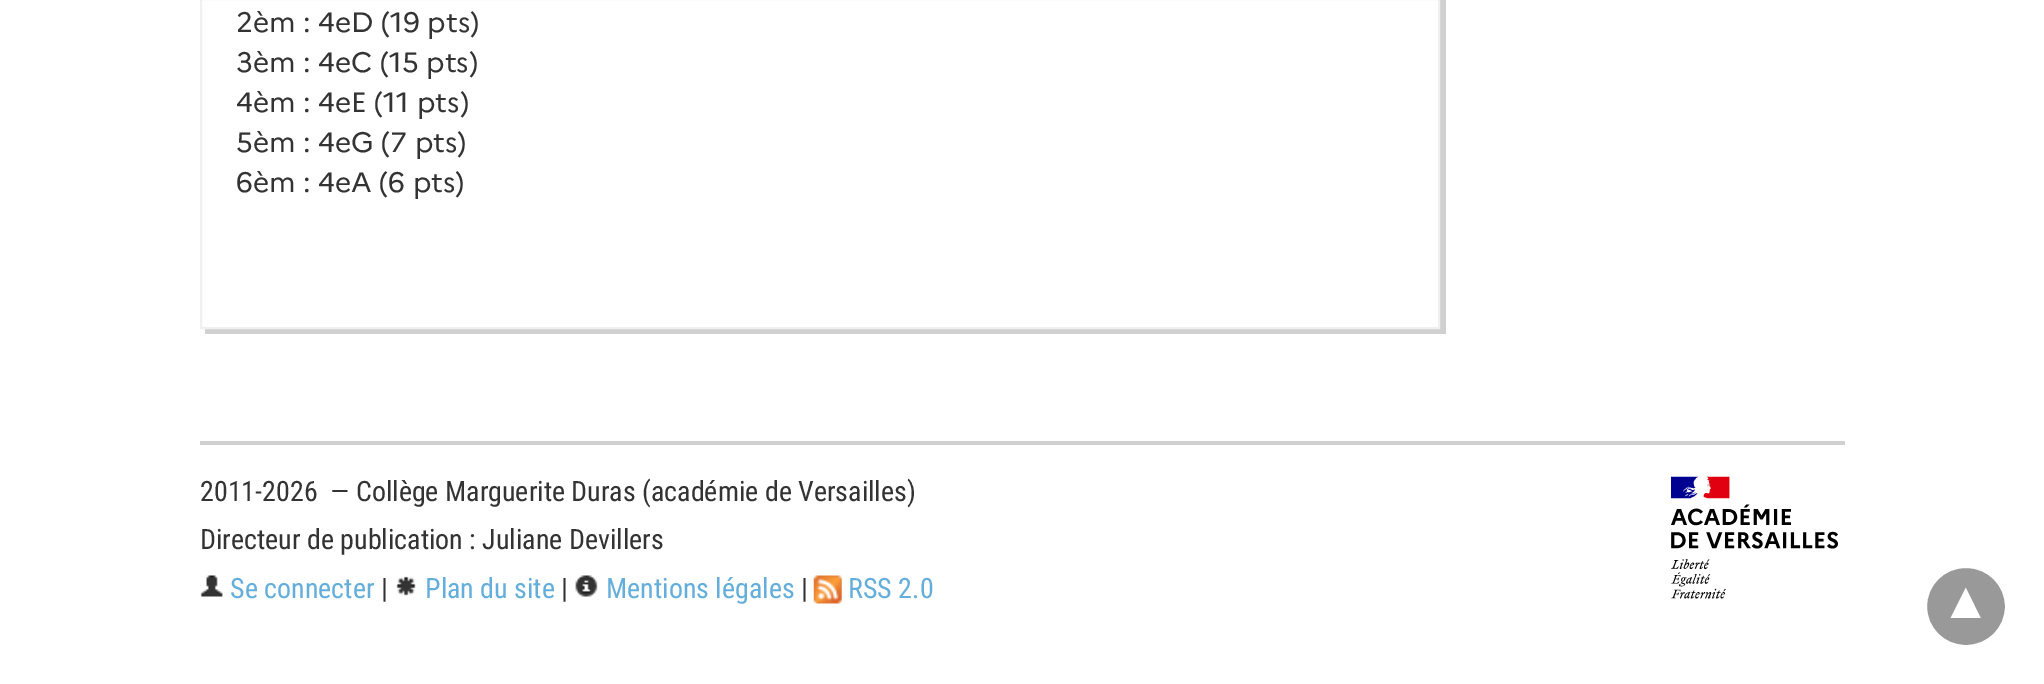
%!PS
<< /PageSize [2044 684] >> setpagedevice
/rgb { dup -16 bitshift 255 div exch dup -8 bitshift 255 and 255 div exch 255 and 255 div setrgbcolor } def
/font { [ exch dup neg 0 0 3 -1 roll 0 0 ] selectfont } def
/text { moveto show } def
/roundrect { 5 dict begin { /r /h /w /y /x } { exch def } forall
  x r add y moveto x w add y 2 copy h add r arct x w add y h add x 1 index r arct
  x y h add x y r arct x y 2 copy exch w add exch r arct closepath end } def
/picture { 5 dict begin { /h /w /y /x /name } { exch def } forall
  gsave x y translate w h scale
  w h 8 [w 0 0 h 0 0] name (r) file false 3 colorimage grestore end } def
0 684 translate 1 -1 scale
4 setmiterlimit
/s1 { /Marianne-Regular 28 font 16#333333 rgb } def
/s2 { /RobotoCondensed-Regular 28 font 16#333333 rgb } def
/s3 { /RobotoCondensed-Regular 28 font 16#64AEDB rgb } def
/s4 { /LiberationSans-Regular 52 font 16#FFFFFF rgb } def
16#FFFFFF rgb
0 0 2044 684 rectfill
16#D0D0D0 rgb
205 329 moveto 205 334 lineto 1446 334 lineto 1446 -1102 lineto 1440 -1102 lineto 1440 329 lineto closepath fill
16#F0F0F0 rgb
2 setlinewidth
201 -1 1238 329 rectstroke
s1
(2èm : 4eD \(19 pts\)) 236 32 text
(3èm : 4eC \(15 pts\)) 236 72 text
(4èm : 4eE \(11 pts\)) 236 112 text
(5èm : 4eG \(7 pts\)) 236 152 text
(6èm : 4eA \(6 pts\)) 236 192 text
16#D0D0D0 rgb
200 441 1645 4 rectfill
s2
(2011-2026  — Collège Marguerite Duras \(académie de Versailles\)) 200 501 text
(Directeur de publication : Juliane Devillers) 200 549 text
(pic1.raw) 200 575 23 22 picture
s3
(Se connecter) 230 598 text
s2
(|) 381 598 text
(pic2.raw) 396 576 20 20 picture
s3
(Plan du site) 425 598 text
s2
(|) 561 598 text
(pic3.raw) 575 575 23 22 picture
s3
(Mentions légales) 606 598 text
s2
(|) 801 598 text
(pic4.raw) 813 575 29 29 picture
s3
(RSS 2.0) 848 598 text
(pic5.raw) 1671 476 167 123 picture
16#999999 rgb
1925 566 82 81 40.5 roundrect gsave fill grestore
16#FFFFFF rgb
4 setlinewidth
stroke
s4
(▲) 1940 618 text
showpage
